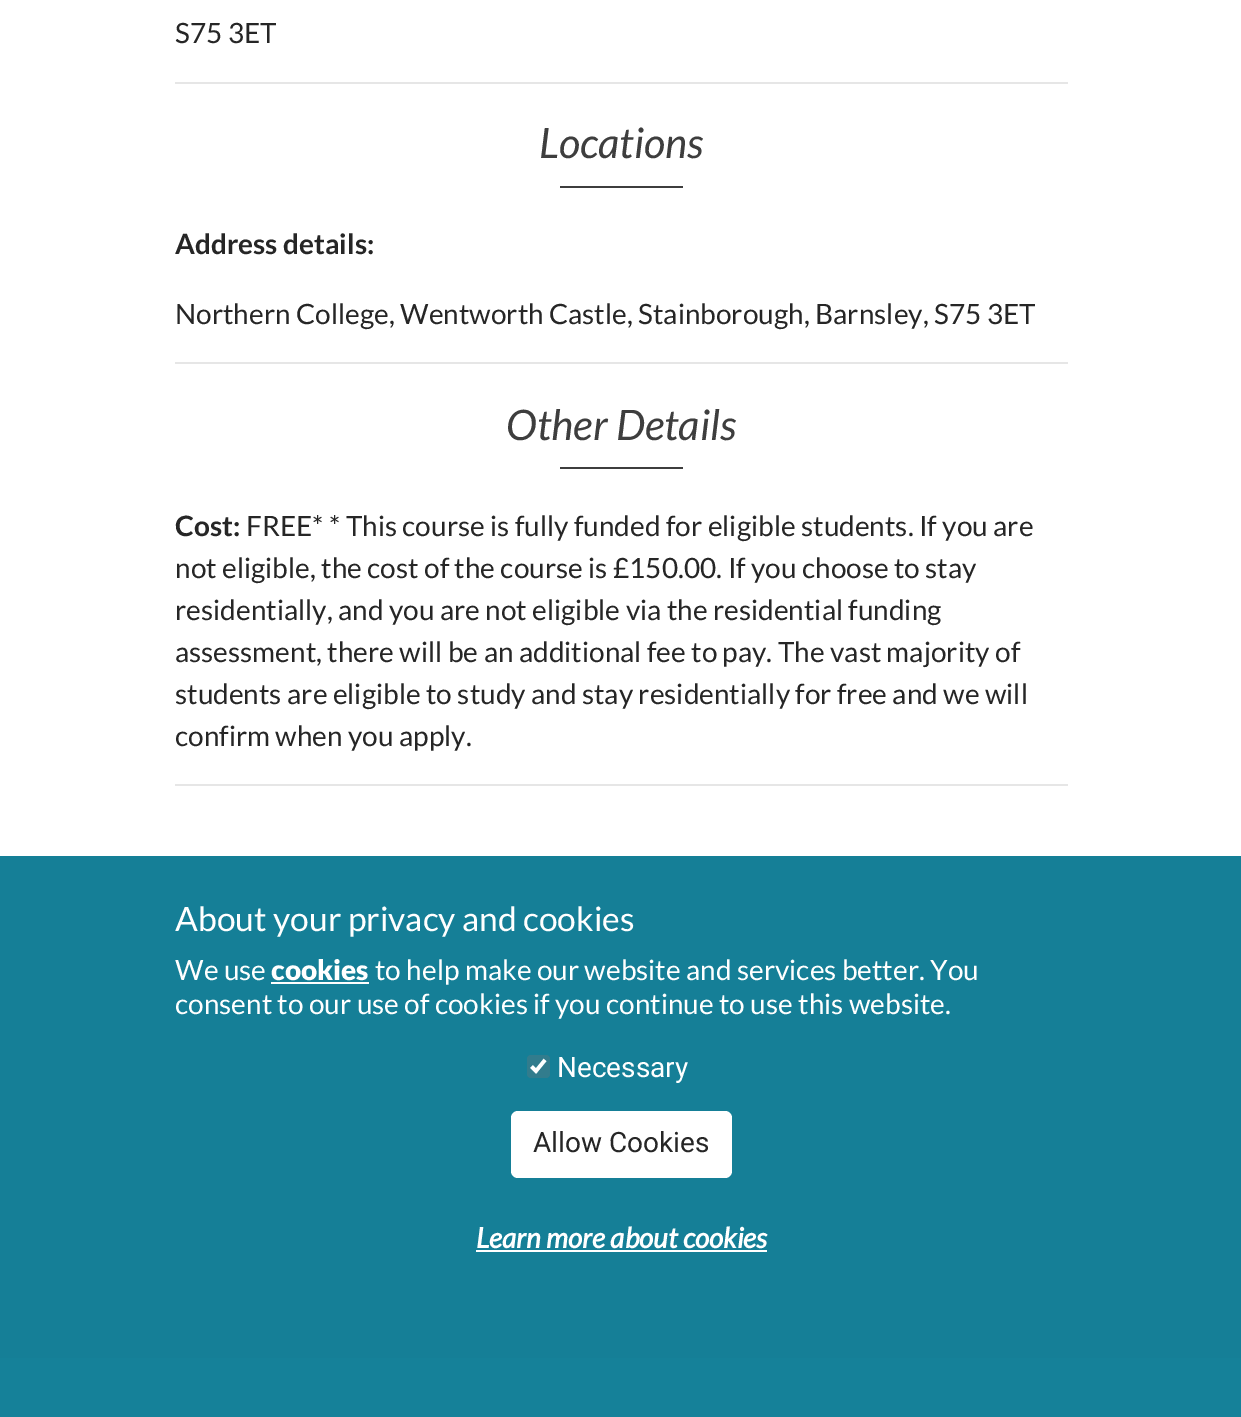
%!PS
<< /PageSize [1241 1417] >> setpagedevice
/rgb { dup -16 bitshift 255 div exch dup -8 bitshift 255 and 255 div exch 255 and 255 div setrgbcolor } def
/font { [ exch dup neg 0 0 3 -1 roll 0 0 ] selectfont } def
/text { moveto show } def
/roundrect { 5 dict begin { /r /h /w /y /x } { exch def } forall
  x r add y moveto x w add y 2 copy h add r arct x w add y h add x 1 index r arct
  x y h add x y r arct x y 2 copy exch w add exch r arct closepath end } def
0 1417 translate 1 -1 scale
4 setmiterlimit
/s1 { /Lato-Regular 28 font 16#262626 rgb } def
/s2 { /Lato-Italic 42 font 16#3E3E3E rgb } def
/s3 { /Lato-Bold 28 font 16#262626 rgb } def
/s4 { /Lato-Regular 33.6 font 16#FFFFFF rgb } def
/s5 { /Lato-Regular 28 font 16#FFFFFF rgb } def
/s6 { /Lato-Black 28 font 16#FFFFFF rgb } def
/s7 { /Roboto-Regular 28 font 16#FFFFFF rgb } def
/s8 { /Roboto-Regular 28 font 16#262626 rgb } def
/s9 { /Lato-BoldItalic 28 font 16#FFFFFF rgb } def
16#FFFFFF rgb
0 0 1241 1417 rectfill
s1
(S75 3ET) 175 43 text
16#E6E6E6 rgb
175 82 893 2 rectfill
s2
(Locations) 539 158 text
560 186 123 2 rectfill
s3
(Address details:) 175 254 text
s1
(Northern College, Wentworth Castle, Stainborough, Barnsley, S75 3ET) 175 324 text
16#E6E6E6 rgb
175 362 893 2 rectfill
s2
(Other Details) 506 440 text
560 467 123 2 rectfill
s3
(Cost:) 175 536 text
s1
(FREE* * This course is fully funded for eligible students. If you are) 246 536 text
(not eligible, the cost of the course is £150.00. If you choose to stay) 175 578 text
(residentially, and you are not eligible via the residential funding) 175 620 text
(assessment, there will be an additional fee to pay. The vast majority of) 175 662 text
(students are eligible to study and stay residentially for free and we will) 175 704 text
(confirm when you apply.) 175 746 text
16#E6E6E6 rgb
175 784 893 2 rectfill
16#157F97 rgb
0 856 1241 502 rectfill
s4
(About your privacy and cookies) 175 931 text
s5
(We use) 175 980 text
s6
(cookies) 271 980 text
271 982 98 2 rectfill
s5
(to help make our website and services better. You) 375 980 text
(consent to our use of cookies if you continue to use this website.) 175 1014 text
16#327C8D rgb
527 1055 23 23 4 roundrect fill
16#FFFFFF rgb
3.6 setlinewidth
531.5 1066.5 moveto 536 1071 lineto 545 1060 lineto stroke
s7
(Necessary) 557 1077 text
511 1111 221 67 7 roundrect fill
s8
(Allow Cookies) 533 1152 text
s9
(Learn more about cookies) 476 1248 text
476 1250 291 2 rectfill
16#158199 rgb
0 1358 1241 59 rectfill
showpage
